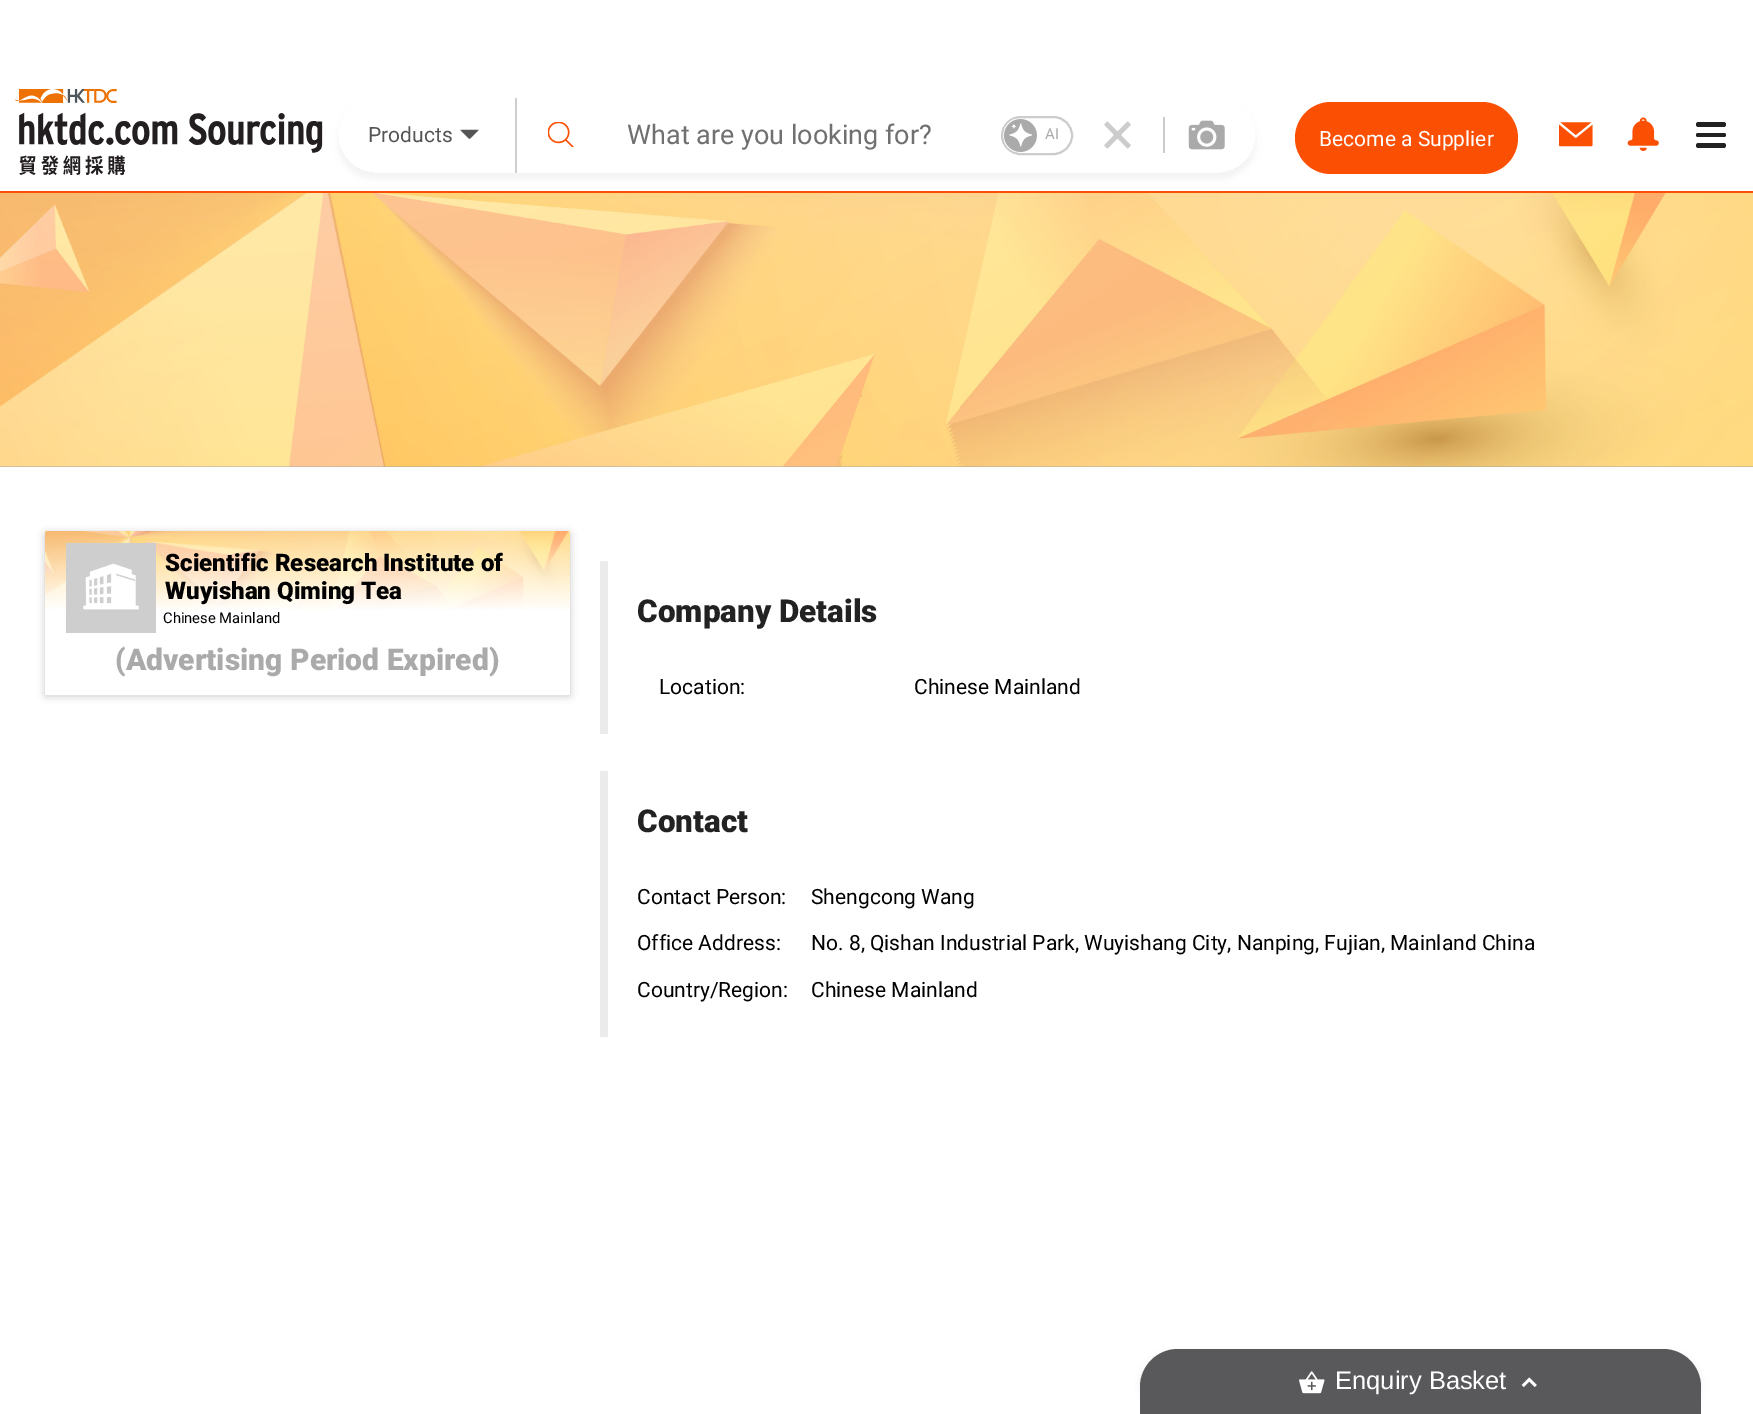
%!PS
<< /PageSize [1753 1414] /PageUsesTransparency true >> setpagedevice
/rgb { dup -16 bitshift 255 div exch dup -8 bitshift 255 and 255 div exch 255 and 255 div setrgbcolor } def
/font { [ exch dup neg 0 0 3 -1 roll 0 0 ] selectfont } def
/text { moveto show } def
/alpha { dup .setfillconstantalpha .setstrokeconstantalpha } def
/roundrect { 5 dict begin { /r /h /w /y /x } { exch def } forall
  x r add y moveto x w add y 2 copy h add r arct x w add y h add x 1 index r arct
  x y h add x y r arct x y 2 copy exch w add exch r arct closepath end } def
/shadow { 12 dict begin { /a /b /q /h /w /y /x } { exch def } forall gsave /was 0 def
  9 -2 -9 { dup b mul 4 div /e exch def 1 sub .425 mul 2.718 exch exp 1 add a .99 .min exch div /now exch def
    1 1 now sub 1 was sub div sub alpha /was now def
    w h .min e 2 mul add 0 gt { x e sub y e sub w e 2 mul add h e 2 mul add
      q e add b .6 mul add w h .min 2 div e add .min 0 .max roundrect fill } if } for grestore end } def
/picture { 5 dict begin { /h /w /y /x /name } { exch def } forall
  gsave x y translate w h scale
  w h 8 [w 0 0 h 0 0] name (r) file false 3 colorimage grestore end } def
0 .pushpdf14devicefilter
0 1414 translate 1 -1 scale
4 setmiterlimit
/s1 { /Roboto-Regular 21 font 16#555555 rgb } def
/s2 { /Roboto-Regular 27 font 16#707070 rgb } def
/s3 { /Roboto-Regular 15 font 16#AAAAAA rgb } def
/s4 { /Roboto-Regular 21 font 16#FFFFFF rgb } def
/s5 { /Roboto-Black 24.1 font 16#000000 rgb } def
/s6 { /Roboto-Regular 14.75 font 16#000000 rgb } def
/s7 { /Roboto-Black 30 font 16#AAAAAA rgb } def
/s8 { /Roboto-Black 31.5 font 16#222222 rgb } def
/s9 { /Roboto-Regular 21 font 16#000000 rgb } def
/s10 { /LiberationSans-Regular 25.5 font 16#FFFFFF rgb } def
16#FFFFFF rgb
0 0 1753 1414 rectfill
16#FB5004 rgb
0 191 1753 2 rectfill
(pic1.raw) 15 89 308 86 picture
gsave
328 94 moveto 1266 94 lineto 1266 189 lineto 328 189 lineto closepath 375.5 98 moveto 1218.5 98 lineto 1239 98 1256 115 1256 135.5 curveto 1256 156 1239 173 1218.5 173 curveto 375.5 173 lineto 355 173 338 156 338 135.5 curveto 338 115 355 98 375.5 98 curveto closepath eoclip newpath
16#7F7F7F rgb
338 104 918 75 37.5 3 0.1 shadow
grestore
16#CFCFCF rgb
515 98 2 75 rectfill
s1
(Products) 368 142 text
(pic2.raw) 460 129 19 10 picture
(pic3.raw) 548 122 26 25 picture
s2
(What are you looking for?) 627 144 text
16#CCCCCC rgb
2 setlinewidth
1002 117 70 37 18.5 roundrect stroke
(pic4.raw) 1004 119 33 33 picture
s3
(AI) 1045 139 text
(pic5.raw) 1104 121 27 28 picture
16#CCCCCC rgb
1163 117 2 36 rectfill
(pic6.raw) 1188 120 37 30 picture
16#FB5004 rgb
1295 102 223 72 36 roundrect fill
s4
(Become a Supplier) 1319 146 text
(pic7.raw) 1559 122 34 25 picture
(pic8.raw) 1627 117 32 34 picture
16#222222 rgb
1696 122 30 5 2.5 roundrect fill
1696 133 30 4 2 roundrect fill
1696 143 30 5 2.5 roundrect fill
16#A9A9A9 rgb
0 466 1753 1 rectfill
(pic9.raw) 0 193 1753 274 picture
16#070001 rgb
45 533 525 163 1.5 4 0.22 shadow
16#FFFFFF rgb
45 531 525 164 1.5 roundrect fill
(pic10.raw) 45 531 525 79 picture
(pic11.raw) 66 543 90 90 picture
s5
(Scientific Research Institute of) 165 571 text
(Wuyishan Qiming Tea) 165 599 text
s6
(Chinese Mainland) 163 623 text
s7
(\(Advertising Period Expired\)) 115 670 text
16#EBEBEB rgb
600 561 8 173 rectfill
s8
(Company Details) 637 622 text
s9
(Location:) 659 694 text
(Chinese Mainland) 914 694 text
16#EBEBEB rgb
600 771 8 266 rectfill
s8
(Contact) 637 832 text
s9
(Contact Person:) 637 904 text
(Shengcong Wang) 811 904 text
(Office Address:) 637 950 text
(No. 8, Qishan Industrial Park, Wuyishang City, Nanping, Fujian, Mainland China) 811 950 text
(Country/Region:) 637 997 text
(Chinese Mainland) 811 997 text
1140 1353 561 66 38 4 0.06 shadow
16#59595B rgb
1178 1349 moveto 1663 1349 lineto 1684 1349 1701 1366 1701 1387 curveto 1701 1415 lineto 1140 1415 lineto 1140 1387 lineto 1140 1366 1157 1349 1178 1349 curveto closepath fill
(pic12.raw) 1299 1371 26 23 picture
s10
(Enquiry Basket) 1335 1389 text
(pic13.raw) 1521 1377 16 10 picture
.poppdf14devicefilter showpage
